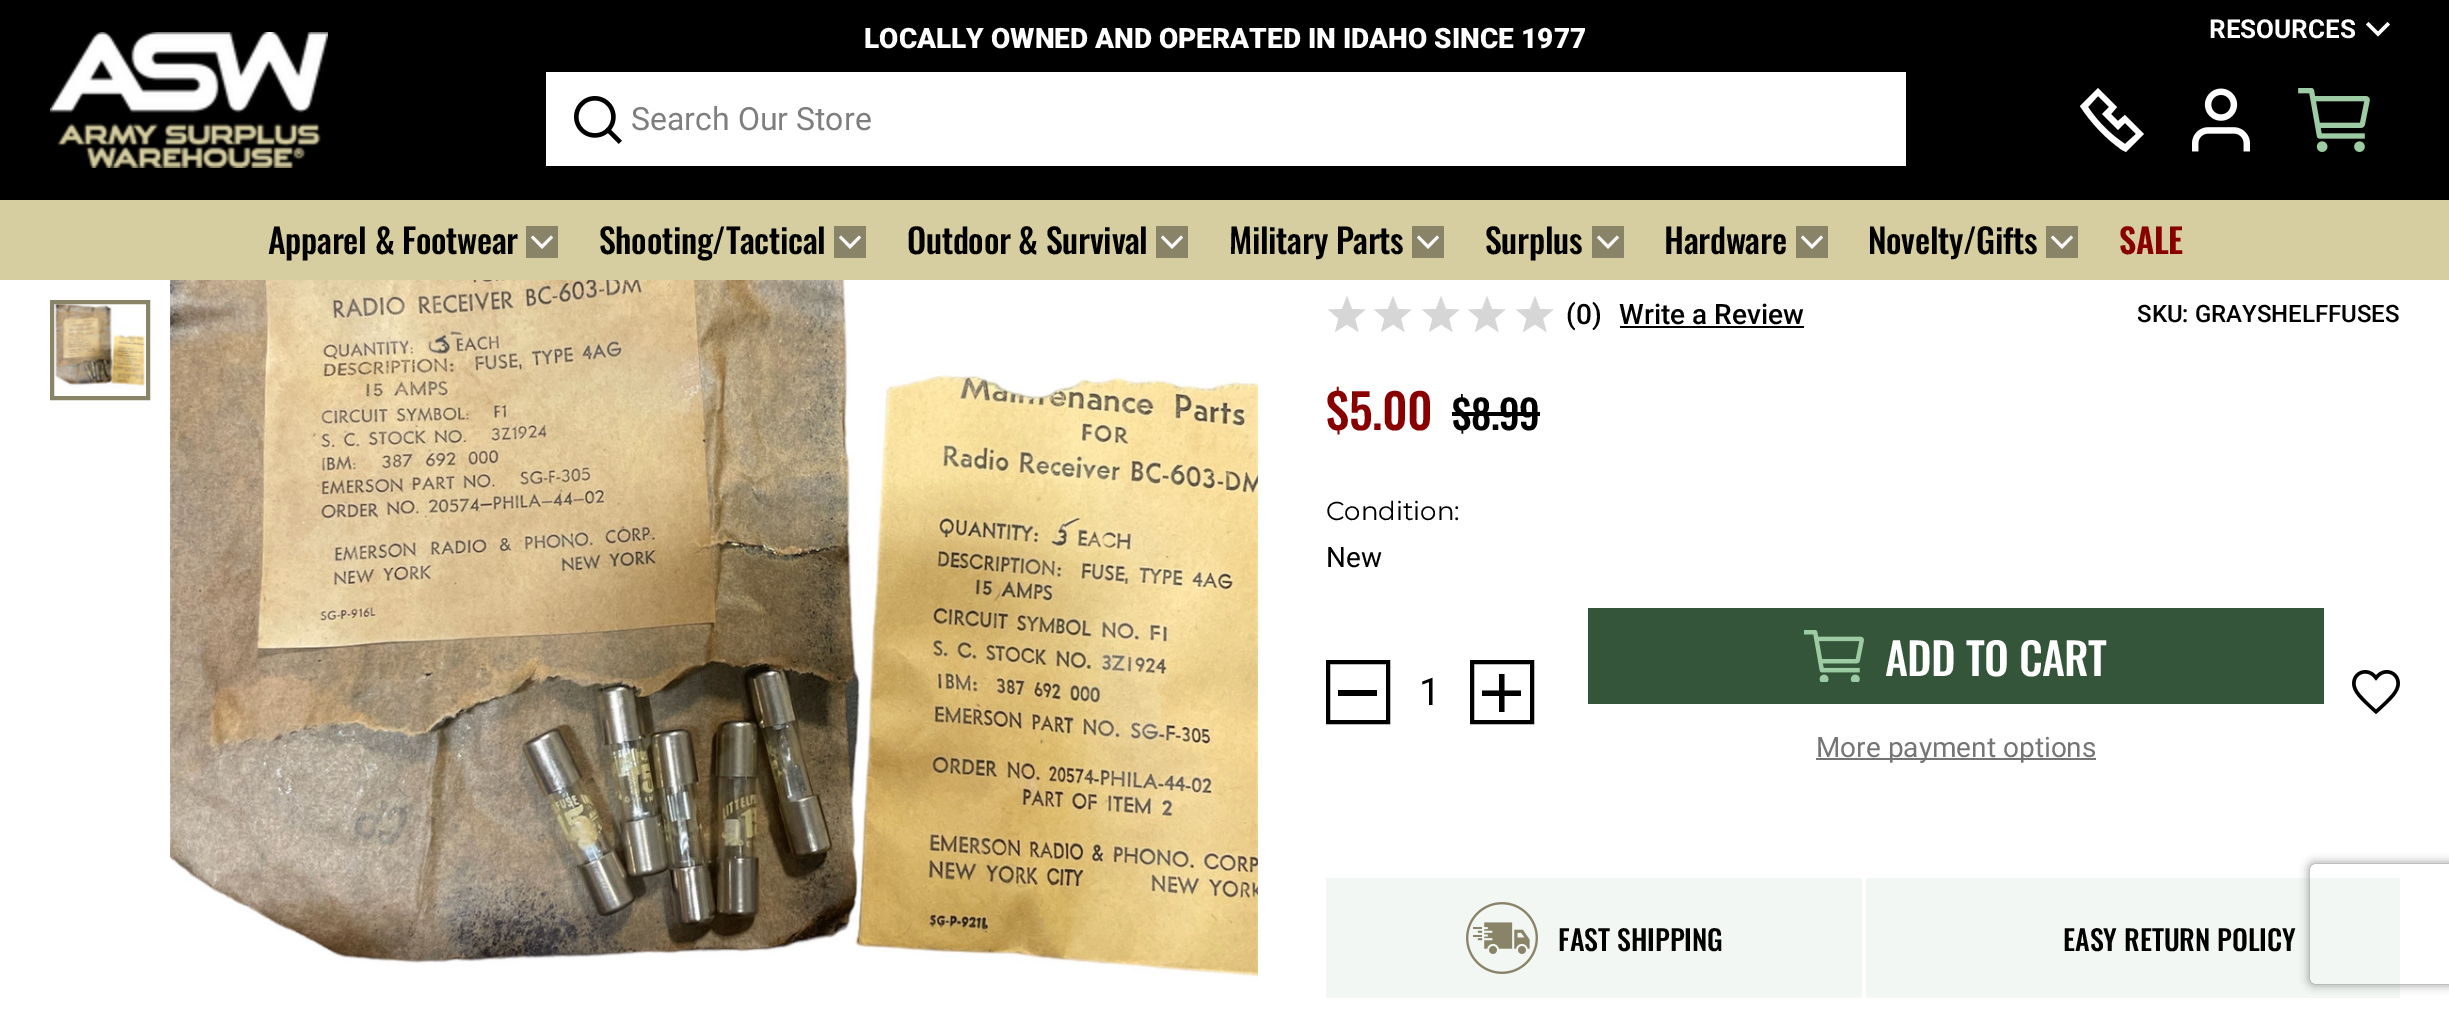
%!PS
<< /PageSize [2449 1011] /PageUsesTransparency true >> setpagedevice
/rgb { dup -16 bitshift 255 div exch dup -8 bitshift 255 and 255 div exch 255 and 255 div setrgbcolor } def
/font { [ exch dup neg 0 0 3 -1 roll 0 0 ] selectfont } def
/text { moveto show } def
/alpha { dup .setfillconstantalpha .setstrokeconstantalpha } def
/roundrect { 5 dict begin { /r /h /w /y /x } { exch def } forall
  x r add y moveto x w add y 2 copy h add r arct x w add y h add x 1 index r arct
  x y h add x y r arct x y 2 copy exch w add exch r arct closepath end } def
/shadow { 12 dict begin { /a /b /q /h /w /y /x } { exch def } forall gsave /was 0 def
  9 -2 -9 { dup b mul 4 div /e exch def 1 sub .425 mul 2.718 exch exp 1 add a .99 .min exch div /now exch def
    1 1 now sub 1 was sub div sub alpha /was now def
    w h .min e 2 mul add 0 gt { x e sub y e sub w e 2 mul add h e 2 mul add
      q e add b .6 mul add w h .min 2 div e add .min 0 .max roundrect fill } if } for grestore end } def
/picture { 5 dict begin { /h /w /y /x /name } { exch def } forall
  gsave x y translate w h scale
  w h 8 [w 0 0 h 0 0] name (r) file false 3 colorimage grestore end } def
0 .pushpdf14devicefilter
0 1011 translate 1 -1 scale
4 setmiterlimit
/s1 { /Roboto-Black 28 font 16#FFFFFF rgb } def
/s2 { /Roboto-Regular 32 font 16#7E7E7E rgb } def
/s3 { /Roboto-Bold 26 font 16#FFFFFF rgb } def
/s4 { /Roboto-Medium 28 font 16#000000 rgb } def
/s5 { /Roboto-Medium 24 font 16#000000 rgb } def
/s6 { /Montserrat-Regular 26 font 16#000000 rgb } def
/s7 { /Roboto-Regular 28 font 16#000000 rgb } def
/s8 { /Roboto-Regular 38 font 16#000000 rgb } def
/s9 { /Roboto-Regular 28 font 16#757575 rgb } def
/s10 { /Oswald-Medium 28 font 16#000000 rgb } def
16#FFFFFF rgb
0 0 2449 1011 rectfill
16#000000 rgb
0 0 2449 200 rectfill
(pic1.raw) 50 32 278 136 picture
s1
(LOCALLY OWNED AND OPERATED IN IDAHO SINCE 1977) 864 48 text
546 72 1360 94 rectfill
(pic2.raw) 574 96 48 48 picture
s2
(Search Our Store) 631 130 text
s3
(RESOURCES) 2209 38 text
2387.5 22 moveto 2378 31.5 lineto 2368.5 22 lineto 2366 24.5 lineto 2378 36.5 lineto 2390 24.5 lineto closepath fill
2122 150 moveto 2105 138 2091 123 2080 106 curveto 2098 88 lineto 2117 107 lineto 2111 114 lineto 2118 121 lineto 2125 115 lineto 2144 134 lineto 2126 152 lineto closepath 2088 107 moveto 2098 122 2110 134 2125 144 curveto 2136 134 lineto 2125 123 lineto 2118 130 lineto 2102 114 lineto 2109 107 lineto 2098 96 lineto closepath fill
(pic3.raw) 2192 88 58 64 picture
(pic4.raw) 2298 88 72 64 picture
16#D6CEA1 rgb
0 200 2449 80 rectfill
/Oswald-Medium 34 font
16#000000 rgb
268 254 moveto -0.3 0 (Apparel & Footwear) ashow
16#898467 rgb
526 226 32 32 rectfill
16#F8F8F8 rgb
551 235.5 moveto 542 244.5 lineto 533 235.5 lineto 531 237.5 lineto 542 249 lineto 553 237.5 lineto closepath fill
16#000000 rgb
599 254 moveto -0.3 0 (Shooting/Tactical) ashow
16#898467 rgb
834 226 32 32 rectfill
16#F8F8F8 rgb
859 235.5 moveto 850 244.5 lineto 841 235.5 lineto 839 237.5 lineto 850 249 lineto 861 237.5 lineto closepath fill
16#000000 rgb
907 254 moveto -0.3 0 (Outdoor & Survival) ashow
16#898467 rgb
1156 226 32 32 rectfill
16#F8F8F8 rgb
1181 235.5 moveto 1172 244.5 lineto 1163 235.5 lineto 1161 237.5 lineto 1172 249 lineto 1183 237.5 lineto closepath fill
16#000000 rgb
1229 254 moveto -0.3 0 (Military Parts) ashow
16#898467 rgb
1412 226 32 32 rectfill
16#F8F8F8 rgb
1437 235.5 moveto 1428 244.5 lineto 1419 235.5 lineto 1417 237.5 lineto 1428 249 lineto 1439 237.5 lineto closepath fill
16#000000 rgb
1485 254 moveto -0.3 0 (Surplus) ashow
16#898467 rgb
1592 226 32 32 rectfill
16#F8F8F8 rgb
1617 235.5 moveto 1608 244.5 lineto 1599 235.5 lineto 1597 237.5 lineto 1608 249 lineto 1619 237.5 lineto closepath fill
16#000000 rgb
1664 254 moveto -0.3 0 (Hardware) ashow
16#898467 rgb
1796 226 32 32 rectfill
16#F8F8F8 rgb
1821 235.5 moveto 1812 244.5 lineto 1803 235.5 lineto 1801 237.5 lineto 1812 249 lineto 1823 237.5 lineto closepath fill
16#000000 rgb
1868 254 moveto -0.3 0 (Novelty/Gifts) ashow
16#898467 rgb
2046 226 32 32 rectfill
16#F8F8F8 rgb
2071 235.5 moveto 2062 244.5 lineto 2053 235.5 lineto 2051 237.5 lineto 2062 249 lineto 2073 237.5 lineto closepath fill
/Oswald-SemiBold 34 font
16#880000 rgb
2119 254 moveto -0.3 0 (SALE) ashow
(pic5.raw) 55 304 90 86 picture
16#898467 rgb
4 setlinewidth
52 302 96 96 rectstroke
(pic6.raw) 170 280 1088 700 picture
16#D6D6D6 rgb
1347 296 moveto 1352 309 lineto 1365.5 309.5 lineto 1355 318.5 lineto 1358.5 332 lineto 1347 324.5 lineto 1335 332 lineto 1338.5 318.5 lineto 1328 309.5 lineto 1342 309 lineto closepath fill
1393 296 moveto 1398 309 lineto 1411.5 309.5 lineto 1401 318.5 lineto 1404.5 332 lineto 1393 324.5 lineto 1381 332 lineto 1384.5 318.5 lineto 1374 309.5 lineto 1388 309 lineto closepath fill
1441 296 moveto 1446 309 lineto 1459.5 309.5 lineto 1449 318.5 lineto 1452.5 332 lineto 1441 324.5 lineto 1429 332 lineto 1432.5 318.5 lineto 1422 309.5 lineto 1436 309 lineto closepath fill
1487 296 moveto 1492 309 lineto 1505.5 309.5 lineto 1495 318.5 lineto 1498.5 332 lineto 1487 324.5 lineto 1475 332 lineto 1478.5 318.5 lineto 1468 309.5 lineto 1482 309 lineto closepath fill
1535 296 moveto 1540 309 lineto 1553.5 309.5 lineto 1543 318.5 lineto 1546.5 332 lineto 1535 324.5 lineto 1523 332 lineto 1526.5 318.5 lineto 1516 309.5 lineto 1530 309 lineto closepath fill
s4
(\(0\)) 1566 324 text
(Write a Review) 1619 324 text
1620 326 184 2 rectfill
s5
(SKU: GRAYSHELFFUSES) 2137 322 text
/Oswald-Medium 48 font
16#880000 rgb
1326 430 moveto -0.5 0 ($5.00) ashow
/Oswald-Medium 40 font
16#000000 rgb
1452 430 moveto -0.5 0 ($8.99) ashow
1452 412 88 4 rectfill
s6
(Condition:) 1326 520 text
s7
(New) 1326 567 text
1328 662 60 60 rectstroke
1338 690 39 6 rectfill
s8
(1) 1419 705 text
1472 662 60 60 rectstroke
gsave
1482 674 40 38 rectclip
1499 712.5 moveto 1499 696 lineto 1482 696 lineto 1482 690.5 lineto 1499 690.5 lineto 1499 674 lineto 1504.5 674 lineto 1504.5 690.5 lineto 1521 690.5 lineto 1521 696 lineto 1504.5 696 lineto 1504.5 712.5 lineto closepath fill
grestore
16#345539 rgb
1588 608 736 96 rectfill
(pic7.raw) 1804 630 60 52 picture
/Oswald-Medium 44 font
16#FFFFFF rgb
1885 676 moveto -0.5 0 (ADD TO CART) ashow
16#757575 rgb
1816 758 280 2 rectfill
s9
(More payment options) 1816 757 text
(pic8.raw) 2352 670 48 44 picture
16#F2F7F3 rgb
1326 878 1074 120 rectfill
(pic9.raw) 1466 902 72 72 picture
s10
(FAST SHIPPING) 1558 951 text
16#FFFFFF rgb
1862 878 4 120 rectfill
s10
(EASY RETURN POLICY) 2063 951 text
gsave
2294 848 moveto 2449 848 lineto 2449 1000 lineto 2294 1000 lineto closepath 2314 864 moveto 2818 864 lineto 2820 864 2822 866 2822 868 curveto 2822 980 lineto 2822 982 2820 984 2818 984 curveto 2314 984 lineto 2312 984 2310 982 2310 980 curveto 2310 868 lineto 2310 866 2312 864 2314 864 curveto closepath eoclip newpath
16#808080 rgb
2310 864 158 120 4 5 1 shadow
grestore
.poppdf14devicefilter showpage
